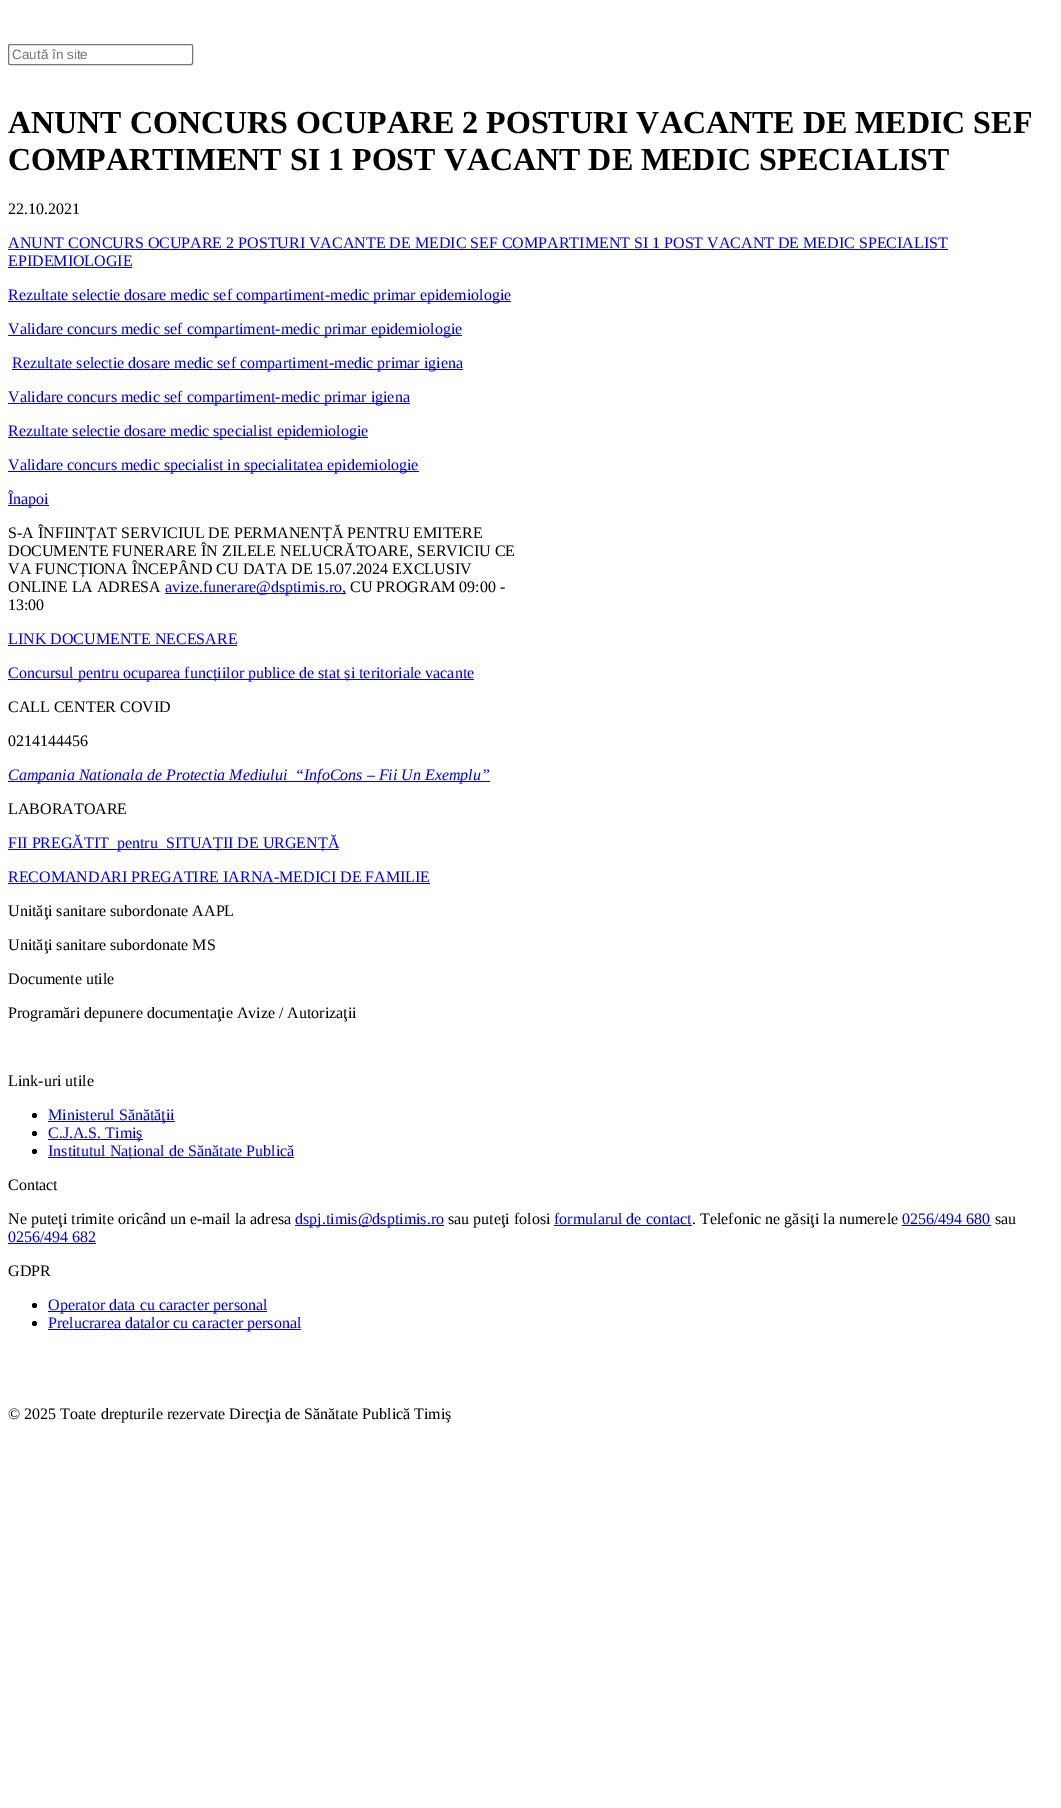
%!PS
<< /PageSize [1061 1808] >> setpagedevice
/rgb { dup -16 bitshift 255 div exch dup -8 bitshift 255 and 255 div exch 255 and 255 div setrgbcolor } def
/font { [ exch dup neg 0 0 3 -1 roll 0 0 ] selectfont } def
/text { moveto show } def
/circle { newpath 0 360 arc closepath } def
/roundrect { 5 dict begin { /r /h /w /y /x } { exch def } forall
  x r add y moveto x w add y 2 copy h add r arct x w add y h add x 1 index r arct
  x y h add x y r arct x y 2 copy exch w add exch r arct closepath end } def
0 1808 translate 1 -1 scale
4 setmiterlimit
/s1 { /LiberationSans-Regular 13.5 font 16#757575 rgb } def
/s2 { /LiberationSerif-Bold 32 font 16#000000 rgb } def
/s3 { /LiberationSerif-Regular 16 font 16#000000 rgb } def
/s4 { /LiberationSerif-Regular 16 font 16#0000EE rgb } def
/s5 { /LiberationSerif-Italic 16 font 16#0000EE rgb } def
16#FFFFFF rgb
0 0 1061 1808 rectfill
16#767676 rgb
8.5 44.5 184 20 1.5 roundrect stroke
s1
(Caută în site) 12 59 text
s2
(ANUNT CONCURS OCUPARE 2 POSTURI VACANTE DE MEDIC SEF) 8 133 text
(COMPARTIMENT SI 1 POST VACANT DE MEDIC SPECIALIST) 8 170 text
s3
(22.10.2021) 8 214 text
s4
(ANUNT CONCURS OCUPARE 2 POSTURI VACANTE DE MEDIC SEF COMPARTIMENT SI 1 POST VACANT DE MEDIC SPECIALIST) 8 248 text
8 249 940 1 rectfill
(EPIDEMIOLOGIE) 8 266 text
8 267 124 1 rectfill
8 301 503 1 rectfill
(Rezultate selectie dosare medic sef compartiment-medic primar epidemiologie) 8 300 text
8 335 454 1 rectfill
(Validare concurs medic sef compartiment-medic primar epidemiologie) 8 334 text
12 369 451 1 rectfill
(Rezultate selectie dosare medic sef compartiment-medic primar igiena) 12 368 text
8 403 402 1 rectfill
(Validare concurs medic sef compartiment-medic primar igiena) 8 402 text
8 437 360 1 rectfill
(Rezultate selectie dosare medic specialist epidemiologie) 8 436 text
8 471 411 1 rectfill
(Validare concurs medic specialist in specialitatea epidemiologie) 8 470 text
8 505 41 1 rectfill
(Înapoi) 8 504 text
s3
(S-A ÎNFIINȚAT SERVICIUL DE PERMANENȚĂ PENTRU EMITERE) 8 538 text
(DOCUMENTE FUNERARE ÎN ZILELE NELUCRĂTOARE, SERVICIU CE) 8 556 text
(VA FUNCȚIONA ÎNCEPÂND CU DATA DE 15.07.2024 EXCLUSIV) 8 574 text
(ONLINE LA ADRESA) 8 592 text
16#0000EE rgb
165 593 181 1 rectfill
(avize.funerare@dsptimis.ro,) 165 592 text
s3
(CU PROGRAM 09:00 -) 350 592 text
(13:00) 8 610 text
s4
(LINK DOCUMENTE NECESARE) 8 644 text
8 645 229 1 rectfill
8 679 466 1 rectfill
(Concursul pentru ocuparea funcțiilor publice de stat și teritoriale vacante) 8 678 text
s3
(CALL CENTER COVID) 8 712 text
(0214144456) 8 746 text
16#0000EE rgb
8 781 482 1 rectfill
s5
(Campania Nationala de Protectia Mediului  “InfoCons – Fii Un Exemplu”) 8 780 text
s3
(LABORATOARE) 8 814 text
16#0000EE rgb
8 849 331 1 rectfill
(FII PREGĂTIT  pentru  SITUAȚII DE URGENȚĂ) 8 848 text
(RECOMANDARI PREGATIRE IARNA-MEDICI DE FAMILIE) 8 882 text
8 883 422 1 rectfill
s3
(Unităţi sanitare subordonate AAPL) 8 916 text
(Unităţi sanitare subordonate MS) 8 950 text
(Documente utile) 8 984 text
(Programări depunere documentaţie Avize / Autorizaţii) 8 1018 text
(Link-uri utile) 8 1086 text
34.5 1115.5 2.5 circle fill
16#0000EE rgb
48 1121 127 1 rectfill
(Ministerul Sănătăţii) 48 1120 text
16#000000 rgb
34.5 1133.5 2.5 circle fill
16#0000EE rgb
48 1139 95 1 rectfill
(C.J.A.S. Timiş) 48 1138 text
16#000000 rgb
34.5 1151.5 2.5 circle fill
16#0000EE rgb
48 1157 246 1 rectfill
(Institutul Național de Sănătate Publică) 48 1156 text
s3
(Contact) 8 1190 text
(Ne puteţi trimite oricând un e-mail la adresa) 8 1224 text
16#0000EE rgb
295 1225 149 1 rectfill
(dspj.timis@dsptimis.ro) 295 1224 text
s3
(sau puteţi folosi) 448 1224 text
s4
(formularul de contact) 554 1224 text
554 1225 138 1 rectfill
s3
(. Telefonic ne găsiţi la numerele) 692 1224 text
s4
(0256/494 680) 902 1224 text
902 1225 89 1 rectfill
s3
(sau) 995 1224 text
s4
(0256/494 682) 8 1242 text
8 1243 88 1 rectfill
s3
(GDPR) 8 1276 text
34.5 1305.5 2.5 circle fill
16#0000EE rgb
48 1311 219 1 rectfill
(Operator data cu caracter personal) 48 1310 text
16#000000 rgb
34.5 1323.5 2.5 circle fill
16#0000EE rgb
48 1329 253 1 rectfill
(Prelucrarea datalor cu caracter personal) 48 1328 text
s3
(© 2025 Toate drepturile rezervate Direcţia de Sănătate Publică Timiş) 8 1419 text
showpage
